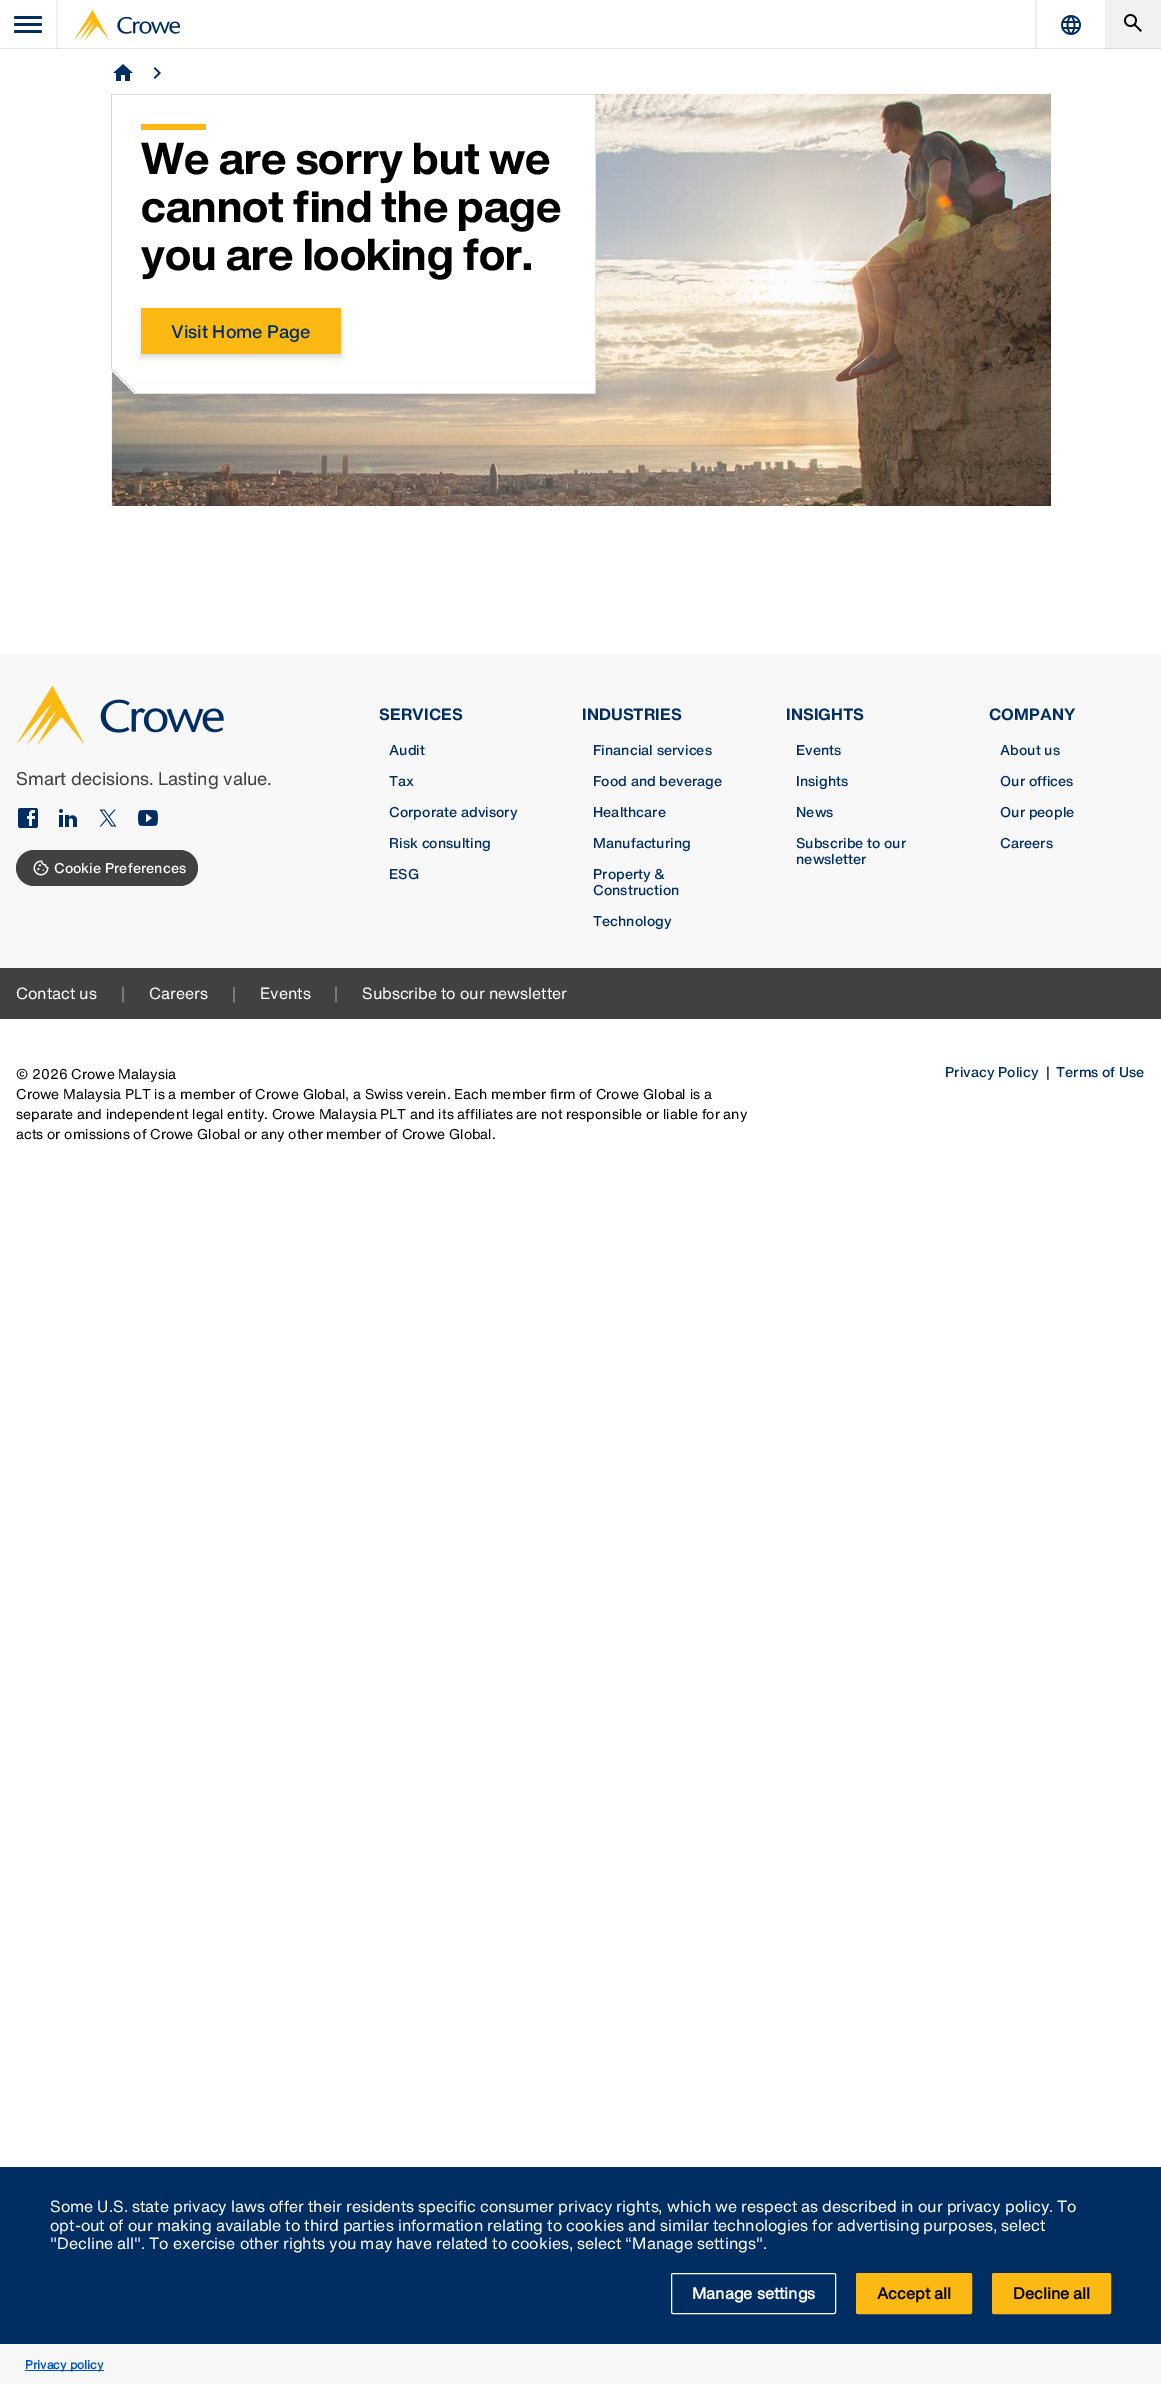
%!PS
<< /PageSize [1161 2384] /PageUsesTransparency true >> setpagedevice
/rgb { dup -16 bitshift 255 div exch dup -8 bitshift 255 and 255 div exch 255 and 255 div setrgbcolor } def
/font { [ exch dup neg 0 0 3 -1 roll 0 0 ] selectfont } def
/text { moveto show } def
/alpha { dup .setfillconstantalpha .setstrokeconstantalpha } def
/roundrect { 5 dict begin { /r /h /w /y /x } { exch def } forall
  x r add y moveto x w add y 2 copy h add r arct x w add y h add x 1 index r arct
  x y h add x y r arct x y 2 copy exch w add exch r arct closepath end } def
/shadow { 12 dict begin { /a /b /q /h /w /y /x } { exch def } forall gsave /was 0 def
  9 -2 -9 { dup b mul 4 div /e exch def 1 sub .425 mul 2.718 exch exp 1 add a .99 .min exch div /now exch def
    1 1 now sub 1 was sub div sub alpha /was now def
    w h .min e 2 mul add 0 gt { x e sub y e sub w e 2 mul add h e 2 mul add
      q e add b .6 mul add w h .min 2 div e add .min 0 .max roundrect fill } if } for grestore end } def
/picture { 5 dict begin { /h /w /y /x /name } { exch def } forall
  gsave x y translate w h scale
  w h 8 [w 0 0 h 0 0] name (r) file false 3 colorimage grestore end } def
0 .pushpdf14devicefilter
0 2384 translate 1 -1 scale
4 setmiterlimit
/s1 { /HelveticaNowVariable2-Bold 44 font 16#000000 rgb } def
/s2 { /HelveticaNowVariable2-Medium 18 font 16#002D62 rgb } def
/s3 { /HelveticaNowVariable-Regular 18 font 16#414141 rgb } def
/s4 { /HelveticaNowVariable-Medium 14 font 16#FFFFFF rgb } def
/s5 { /HelveticaNowVariable-Bold 16 font 16#002D62 rgb } def
/s6 { /HelveticaNowVariable-Medium 14 font 16#002D62 rgb } def
/s7 { /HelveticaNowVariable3-Regular 16 font 16#FFFFFF rgb } def
/s8 { /HelveticaNowVariable3-Regular 16 font 16#8E8E8E rgb } def
/s9 { /HelveticaNowVariable2-Regular 14 font 16#000000 rgb } def
/s10 { /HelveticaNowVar-Regular 16 font 16#FFFFFF rgb } def
/s11 { /HelveticaNowVar-Bold 16 font 16#FFFFFF rgb } def
/s12 { /HelveticaNowVar-Bold 16 font 16#000000 rgb } def
/s13 { /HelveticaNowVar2-Bold 12 font 16#0052CC rgb } def
16#FFFFFF rgb
0 0 1161 2384 rectfill
16#E6E6E6 rgb
0 48 1105 1 rectfill
16#F1F1F1 rgb
56 0 2 49 rectfill
16#D9D9D9 rgb
56 48 2 1 rectfill
16#002D62 rgb
14 16 28 3 1.5 roundrect fill
14 23 28 3 1.5 roundrect fill
14 30 28 3 1.5 roundrect fill
16#F1F1F1 rgb
1035 0 2 49 rectfill
16#D9D9D9 rgb
1035 48 2 1 rectfill
(pic1.raw) 74 10 106 30 picture
(pic2.raw) 1061 15 20 20 picture
16#F1F1F1 rgb
1105 0 56 48 rectfill
16#D9D9D9 rgb
1105 48 56 1 rectfill
(pic3.raw) 1124 14 18 18 picture
(pic4.raw) 113 64 20 17 picture
(pic5.raw) 153 67 8 12 picture
(pic6.raw) 111 94 940 412 picture
gsave
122 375 moveto 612 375 lineto 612 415 lineto 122 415 lineto closepath 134 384 moveto 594 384 lineto 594 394 lineto 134 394 lineto closepath eoclip newpath
16#000000 rgb
137 390 460 10 0 4.5 0.1 shadow
grestore
gsave
111 94 485 300 rectclip
16#CCCCCC rgb
137 394 moveto 596 394 lineto stroke
596 394 moveto 596 94 lineto stroke
596 94 moveto 111 94 lineto stroke
grestore
16#CCCCCC rgb
0.5 setlinewidth
137 394 moveto 111 368 lineto stroke
gsave
111 94 485 300 rectclip
1 setlinewidth
111 368 moveto 111 94 lineto stroke
grestore
16#FDB913 rgb
141 124 65 6 rectfill
s1
(We are sorry but we) 141 174 text
(cannot find the page) 141 222 text
(you are looking for.) 141 270 text
141 311 200 46 0 3 0.16 shadow
16#FDB913 rgb
141 308 200 46 rectfill
s2
(Visit Home Page) 171 338 text
16#F8F8F8 rgb
0 654 1161 314 rectfill
(pic7.raw) 16 686 208 59 picture
s3
(Smart decisions. Lasting value.) 16 785 text
(pic8.raw) 18 808 20 20 picture
(pic9.raw) 59 809 18 18 picture
(pic10.raw) 99 809 18 18 picture
(pic11.raw) 138 810 20 16 picture
16 850 182 36 18 roundrect fill
(pic12.raw) 33 860 16 16 picture
s4
(Cookie Preferences) 54 873 text
s5
(SERVICES) 379 720 text
s6
(Audit) 389 755 text
(Tax) 389 786 text
(Corporate advisory) 389 817 text
(Risk consulting) 389 848 text
(ESG) 389 879 text
s5
(INDUSTRIES) 582 720 text
s6
(Financial services) 593 755 text
(Food and beverage) 593 786 text
(Healthcare) 593 817 text
(Manufacturing) 593 848 text
(Property &) 593 879 text
(Construction) 593 895 text
(Technology) 593 926 text
s5
(INSIGHTS) 786 720 text
s6
(Events) 796 755 text
(Insights) 796 786 text
(News) 796 817 text
(Subscribe to our) 796 848 text
(newsletter) 796 864 text
s5
(COMPANY) 989 720 text
s6
(About us) 1000 755 text
(Our offices) 1000 786 text
(Our people) 1000 817 text
(Careers) 1000 848 text
16#414141 rgb
0 968 1161 51 rectfill
s7
(Contact us) 16 999 text
s8
(|) 121 999 text
s7
(Careers) 149 999 text
s8
(|) 232 999 text
s7
(Events) 260 999 text
s8
(|) 334 999 text
s7
(Subscribe to our newsletter) 362 999 text
s9
(© 2026 Crowe Malaysia) 16 1079 text
(Crowe Malaysia PLT is a member of Crowe Global, a Swiss verein. Each member firm of Crowe Global is a) 16 1099 text
(separate and independent legal entity. Crowe Malaysia PLT and its affiliates are not responsible or liable for any) 16 1119 text
(acts or omissions of Crowe Global or any other member of Crowe Global.) 16 1139 text
s6
(Privacy Policy) 945 1077 text
s9
(|) 1046 1077 text
s6
(Terms of Use) 1056 1077 text
0 2167 1161 177 rectfill
s10
(Some U.S. state privacy laws offer their residents specific consumer privacy rights, which we respect as described in our privacy policy. To) 50 2212 text
(opt-out of our making available to third parties information relating to cookies and similar technologies for advertising purposes, select) 50 2231 text
("Decline all". To exercise other rights you may have related to cookies, select “Manage settings".) 50 2249 text
1 setlinewidth
671.5 2273.5 164 40 1.5 roundrect stroke
s11
(Manage settings) 692 2299 text
16#FDB913 rgb
856.5 2273.5 115 40 1.5 roundrect gsave fill grestore
stroke
s12
(Accept all) 877 2299 text
16#FDB913 rgb
992.5 2273.5 118 40 1.5 roundrect gsave fill grestore
stroke
s12
(Decline all) 1013 2299 text
16#F7F7F7 rgb
0 2344 1161 40 rectfill
16#0052CC rgb
25 2370 79 1 rectfill
s13
(Privacy policy) 25 2369 text
.poppdf14devicefilter showpage
